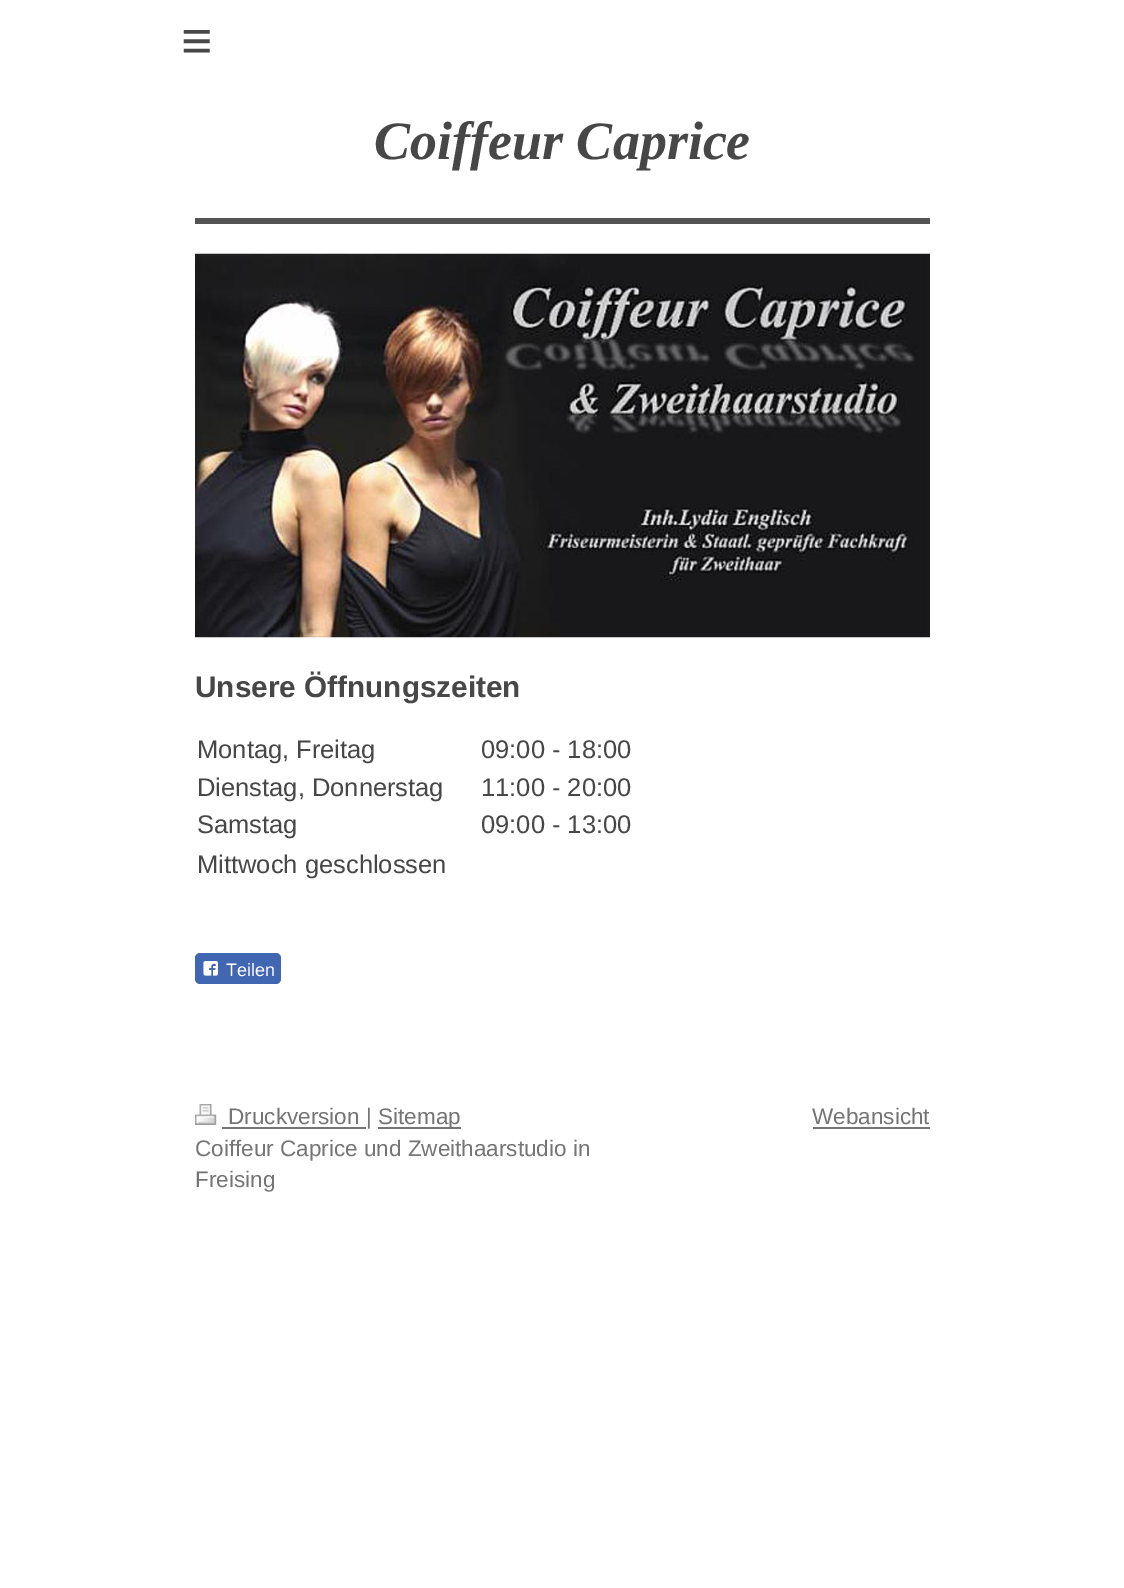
%!PS
<< /PageSize [1124 1588] >> setpagedevice
/rgb { dup -16 bitshift 255 div exch dup -8 bitshift 255 and 255 div exch 255 and 255 div setrgbcolor } def
/font { [ exch dup neg 0 0 3 -1 roll 0 0 ] selectfont } def
/text { moveto show } def
/roundrect { 5 dict begin { /r /h /w /y /x } { exch def } forall
  x r add y moveto x w add y 2 copy h add r arct x w add y h add x 1 index r arct
  x y h add x y r arct x y 2 copy exch w add exch r arct closepath end } def
/picture { 5 dict begin { /h /w /y /x /name } { exch def } forall
  gsave x y translate w h scale
  w h 8 [w 0 0 h 0 0] name (r) file false 3 colorimage grestore end } def
0 1588 translate 1 -1 scale
4 setmiterlimit
/s1 { /LiberationSerif-BoldItalic 54 font 16#474747 rgb } def
/s2 { /LiberationSans-Bold 29.75 font 16#474747 rgb } def
/s3 { /LiberationSans-Regular 25.5 font 16#474747 rgb } def
/s4 { /LiberationSans-Regular 18 font 16#FFFFFF rgb } def
/s5 { /LiberationSans-Regular 22.5 font 16#757575 rgb } def
16#FFFFFF rgb
0 0 1124 1588 rectfill
/LiberationSans-Regular 54 font
16#474747 rgb
181 59 moveto 16 0 (≡) ashow
s1
(Coiffeur Caprice) 374 159 text
16#535353 rgb
195 218 735 6 rectfill
(pic1.raw) 195 253 735 385 picture
s2
(Unsere Öffnungszeiten) 195 697 text
s3
(Montag, Freitag) 197 758 text
(09:00 - 18:00) 481 758 text
(Dienstag, Donnerstag) 197 796 text
(11:00 - 20:00) 481 796 text
(Samstag) 197 833 text
(09:00 - 13:00) 481 833 text
(Mittwoch geschlossen) 197 873 text
16#4267B2 rgb
195 953 86 31 5 roundrect fill
(pic2.raw) 203 961 15 15 picture
s4
(Teilen) 226 976 text
(pic3.raw) 195 1104 22 21 picture
16#757575 rgb
222 1127 144 2 rectfill
s5
(Druckversion |) 228 1124 text
378 1127 83 2 rectfill
(Sitemap) 378 1124 text
(Coiffeur Caprice und Zweithaarstudio in) 195 1156 text
(Freising) 195 1187 text
(Webansicht) 812 1124 text
813 1127 117 2 rectfill
showpage
